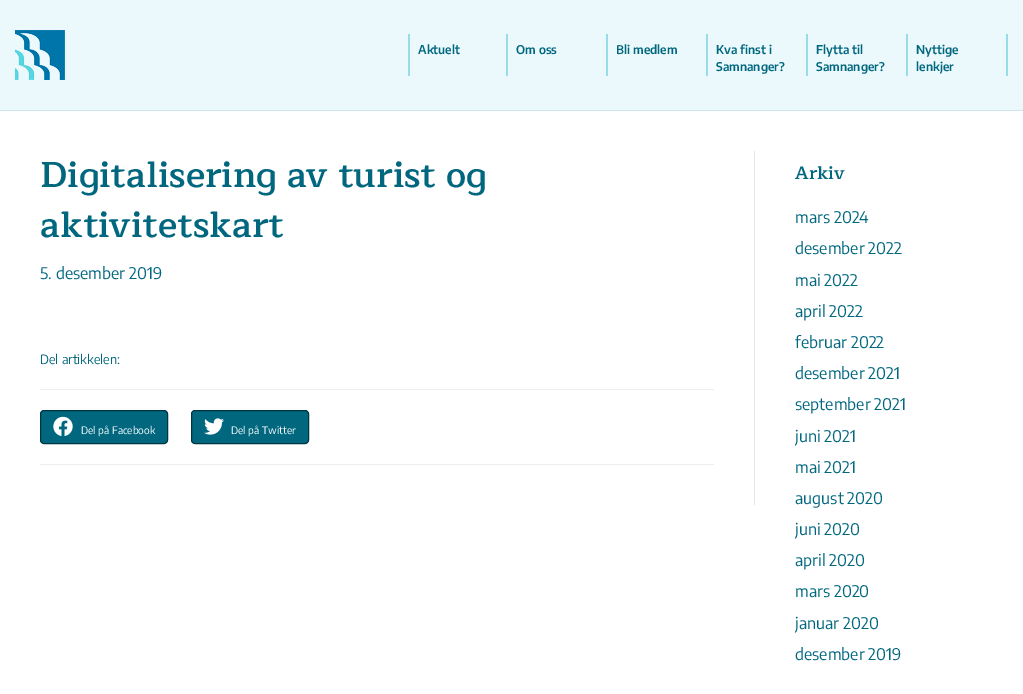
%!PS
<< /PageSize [1023 694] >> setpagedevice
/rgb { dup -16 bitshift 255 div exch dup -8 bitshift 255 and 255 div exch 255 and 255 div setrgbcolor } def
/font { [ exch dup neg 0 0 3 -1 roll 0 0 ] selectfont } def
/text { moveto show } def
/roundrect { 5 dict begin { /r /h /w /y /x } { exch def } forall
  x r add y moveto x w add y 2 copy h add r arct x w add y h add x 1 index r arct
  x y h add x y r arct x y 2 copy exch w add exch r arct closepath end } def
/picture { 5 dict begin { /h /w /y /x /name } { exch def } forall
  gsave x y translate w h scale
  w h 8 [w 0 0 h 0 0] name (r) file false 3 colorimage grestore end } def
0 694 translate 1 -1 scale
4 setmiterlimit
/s1 { /EncodeSansCondensed-SemiBold 12 font 16#00677F rgb } def
/s2 { /Maitree-SemiBold 36 font 16#00677F rgb } def
/s3 { /EncodeSansCondensed-Regular 16 font 16#00677F rgb } def
/s4 { /EncodeSansCondensed-Regular 12.75 font 16#00677F rgb } def
/s5 { /EncodeSansCondensed-Regular 10.25 font 16#FFFFFF rgb } def
/s6 { /Maitree-SemiBold 18 font 16#00677F rgb } def
16#EBF9FC rgb
0 0 1023 694 rectfill
16#CCE6EC rgb
0 110 1023 1 rectfill
(pic1.raw) 15 30 50 50 picture
16#9ADBE8 rgb
506 34 2 42 rectfill
408 34 2 42 rectfill
s1
(Aktuelt) 418 54 text
16#9ADBE8 rgb
606 34 2 42 rectfill
s1
(Om oss) 516 54 text
16#9ADBE8 rgb
706 34 2 42 rectfill
s1
(Bli medlem) 616 54 text
16#9ADBE8 rgb
806 34 2 42 rectfill
s1
(Kva finst i) 716 54 text
(Samnanger?) 716 71 text
16#9ADBE8 rgb
906 34 2 42 rectfill
s1
(Flytta til) 816 54 text
(Samnanger?) 816 71 text
16#9ADBE8 rgb
1006 34 2 42 rectfill
s1
(Nyttige) 916 54 text
(lenkjer) 916 71 text
16#FFFFFF rgb
0 111 1023 583 rectfill
16#E6E6E6 rgb
754 151 1 354 rectfill
s2
(Digitalisering av turist og) 40 187 text
(aktivitetskart) 40 237 text
s3
(5. desember 2019) 40 279 text
s4
(Del artikkelen:) 40 364 text
16#EEEEEE rgb
40 389 674 1 rectfill
16#00677F rgb
40.5 410.5 127 33 3.5 roundrect gsave fill grestore
16#003542 rgb
stroke
(pic2.raw) 53 416 20 20 picture
s5
(Del på Facebook) 81 434 text
16#00677F rgb
191.5 410.5 117 33 3.5 roundrect gsave fill grestore
16#003542 rgb
stroke
(pic3.raw) 204 418 20 17 picture
s5
(Del på Twitter) 231 434 text
16#EEEEEE rgb
40 464 674 1 rectfill
s6
(Arkiv) 795 179 text
s3
(mars 2024) 795 223 text
(desember 2022) 795 254 text
(mai 2022) 795 286 text
(april 2022) 795 317 text
(februar 2022) 795 348 text
(desember 2021) 795 379 text
(september 2021) 795 410 text
(juni 2021) 795 442 text
(mai 2021) 795 473 text
(august 2020) 795 504 text
(juni 2020) 795 535 text
(april 2020) 795 566 text
(mars 2020) 795 597 text
(januar 2020) 795 629 text
(desember 2019) 795 660 text
showpage
